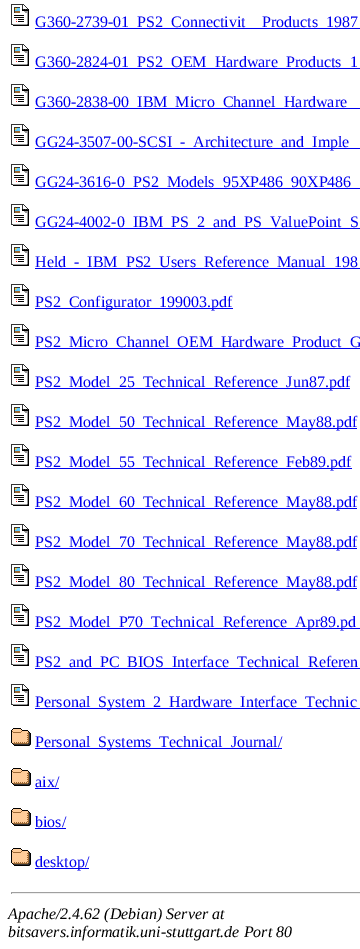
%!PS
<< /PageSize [360 949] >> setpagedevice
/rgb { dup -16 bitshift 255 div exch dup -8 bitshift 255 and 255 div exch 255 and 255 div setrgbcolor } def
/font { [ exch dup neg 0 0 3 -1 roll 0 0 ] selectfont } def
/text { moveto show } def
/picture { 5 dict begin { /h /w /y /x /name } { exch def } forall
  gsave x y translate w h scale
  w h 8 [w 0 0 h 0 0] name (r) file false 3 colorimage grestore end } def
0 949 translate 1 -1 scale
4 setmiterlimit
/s1 { /LiberationSerif-Regular 16 font 16#0000EE rgb } def
/s2 { /LiberationSerif-Italic 16 font 16#000000 rgb } def
16#FFFFFF rgb
0 0 360 949 rectfill
(pic1.raw) 11 4 18 22 picture
16#0000EE rgb
35 28 325 1 rectfill
s1
(G360-2739-01_PS2_Connectivit) 35 27 text
(Products_1987) 262 27 text
(pic1.raw) 11 44 18 22 picture
35 68 325 1 rectfill
(G360-2824-01_PS2_OEM_Hardware_Products_1) 35 67 text
(pic1.raw) 11 84 18 22 picture
35 108 325 1 rectfill
(G360-2838-00_IBM_Micro_Channel_Hardware) 35 107 text
(pic1.raw) 11 124 18 22 picture
35 148 325 1 rectfill
(GG24-3507-00-SCSI_-_Architecture_and_Imple) 35 147 text
(pic1.raw) 11 164 18 22 picture
35 188 325 1 rectfill
(GG24-3616-0_PS2_Models_95XP486_90XP486) 35 187 text
(pic1.raw) 11 204 18 22 picture
35 228 325 1 rectfill
(GG24-4002-0_IBM_PS_2_and_PS_ValuePoint_S) 35 227 text
(pic1.raw) 11 244 18 22 picture
35 268 325 1 rectfill
(Held_-_IBM_PS2_Users_Reference_Manual_198) 35 267 text
(pic1.raw) 11 284 18 22 picture
35 308 198 1 rectfill
(PS2_Configurator_199003.pdf) 35 307 text
(pic1.raw) 11 324 18 22 picture
35 348 325 1 rectfill
(PS2_Micro_Channel_OEM_Hardware_Product_G) 35 347 text
(pic1.raw) 11 364 18 22 picture
35 388 315 1 rectfill
(PS2_Model_25_Technical_Reference_Jun87.pdf) 35 387 text
(pic1.raw) 11 404 18 22 picture
35 428 322 1 rectfill
(PS2_Model_50_Technical_Reference_May88.pdf) 35 427 text
(pic1.raw) 11 444 18 22 picture
35 468 317 1 rectfill
(PS2_Model_55_Technical_Reference_Feb89.pdf) 35 467 text
(pic1.raw) 11 484 18 22 picture
35 508 322 1 rectfill
(PS2_Model_60_Technical_Reference_May88.pdf) 35 507 text
(pic1.raw) 11 524 18 22 picture
35 548 322 1 rectfill
(PS2_Model_70_Technical_Reference_May88.pdf) 35 547 text
(pic1.raw) 11 564 18 22 picture
35 588 322 1 rectfill
(PS2_Model_80_Technical_Reference_May88.pdf) 35 587 text
(pic1.raw) 11 604 18 22 picture
35 628 325 1 rectfill
(PS2_Model_P70_Technical_Reference_Apr89.pd) 35 627 text
(pic1.raw) 11 644 18 22 picture
35 668 325 1 rectfill
(PS2_and_PC_BIOS_Interface_Technical_Referen) 35 667 text
(pic1.raw) 11 684 18 22 picture
35 708 325 1 rectfill
(Personal_System_2_Hardware_Interface_Technic) 35 707 text
(pic2.raw) 11 728 20 18 picture
35 748 247 1 rectfill
(Personal_Systems_Technical_Journal/) 35 747 text
(pic2.raw) 11 768 20 18 picture
(aix/) 35 787 text
35 788 24 1 rectfill
(pic2.raw) 11 808 20 18 picture
(bios/) 35 827 text
35 828 31 1 rectfill
(pic2.raw) 11 848 20 18 picture
35 868 54 1 rectfill
(desktop/) 35 867 text
16#9F9F9F rgb
11 892 349 1 rectfill
16#EEEEEE rgb
11 893 349 1 rectfill
16#9F9F9F rgb
11 892 1 2 rectfill
s2
(Apache/2.4.62 \(Debian\) Server at) 8 919 text
(bitsavers.informatik.uni-stuttgart.de Port 80) 8 937 text
showpage
